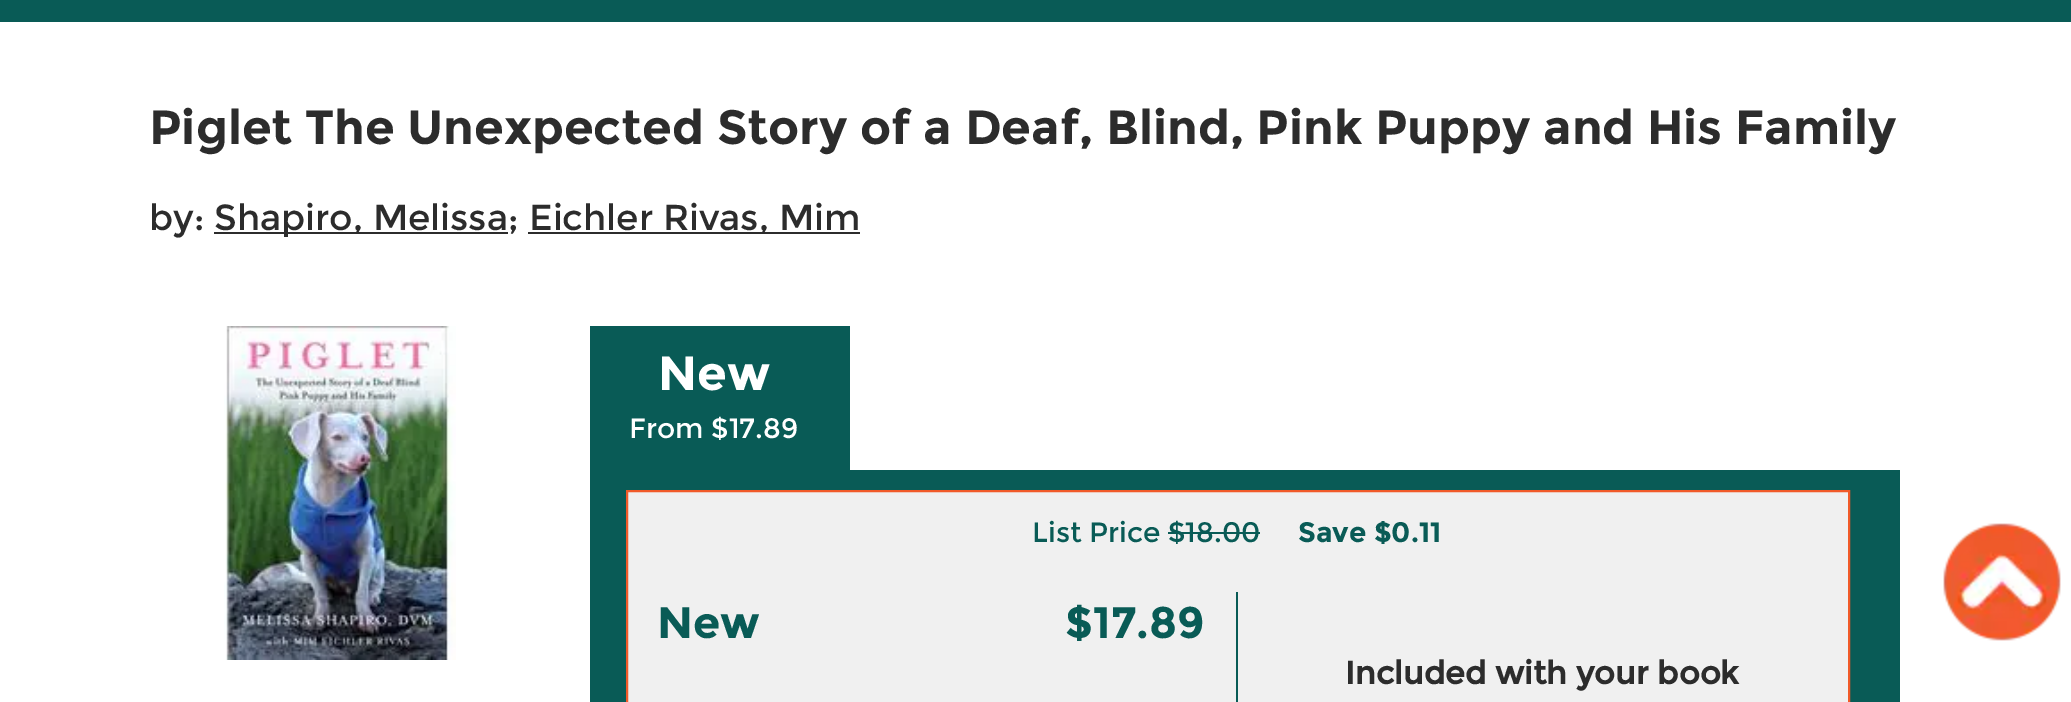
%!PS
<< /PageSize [2071 702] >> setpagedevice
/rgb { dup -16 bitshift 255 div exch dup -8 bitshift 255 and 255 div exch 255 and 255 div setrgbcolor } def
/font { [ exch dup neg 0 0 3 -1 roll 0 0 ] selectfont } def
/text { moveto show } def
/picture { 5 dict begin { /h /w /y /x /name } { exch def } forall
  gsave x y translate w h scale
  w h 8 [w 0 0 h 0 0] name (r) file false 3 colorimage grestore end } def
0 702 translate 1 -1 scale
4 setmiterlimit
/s1 { /Montserrat-Bold 48 font 16#2C2C2C rgb } def
/s2 { /Montserrat-Regular 36 font 16#2C2C2C rgb } def
/s3 { /Montserrat-Bold 48 font 16#FFFFFF rgb } def
/s4 { /Montserrat-Regular 28 font 16#FFFFFF rgb } def
/s5 { /Montserrat-Regular 28 font 16#095B56 rgb } def
/s6 { /Montserrat-Bold 28 font 16#095B56 rgb } def
/s7 { /Montserrat-Bold 44 font 16#095B56 rgb } def
/s8 { /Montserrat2-Bold 32 font 16#2C2C2C rgb } def
16#FFFFFF rgb
0 0 2071 702 rectfill
16#095B56 rgb
0 0 2071 22 rectfill
s1
(Piglet The Unexpected Story of a Deaf, Blind, Pink Puppy and His Family) 149 144 text
s2
(by:) 149 230 text
214 232 294 2 rectfill
(Shapiro, Melissa;) 214 230 text
528 232 332 2 rectfill
(Eichler Rivas, Mim) 529 230 text
(pic1.raw) 224 326 232 334 picture
16#095B56 rgb
590 326 260 144 rectfill
s3
(New) 658 390 text
s4
(From $17.89) 629 438 text
16#095B56 rgb
590 470 1310 232 rectfill
16#F0F0F0 rgb
627 491 moveto 1849 491 lineto 1849 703 lineto 627 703 lineto closepath gsave fill grestore
16#F15A29 rgb
2 setlinewidth
stroke
s5
(List Price $18.00) 1032 542 text
1168 532 92 2 rectfill
s6
(Save $0.11) 1298 542 text
1236 592 2 110 rectfill
s7
(New) 657 638 text
($17.89) 1065 638 text
s8
(Included with your book) 1345 684 text
(pic2.raw) 1943 523 118 118 picture
showpage
